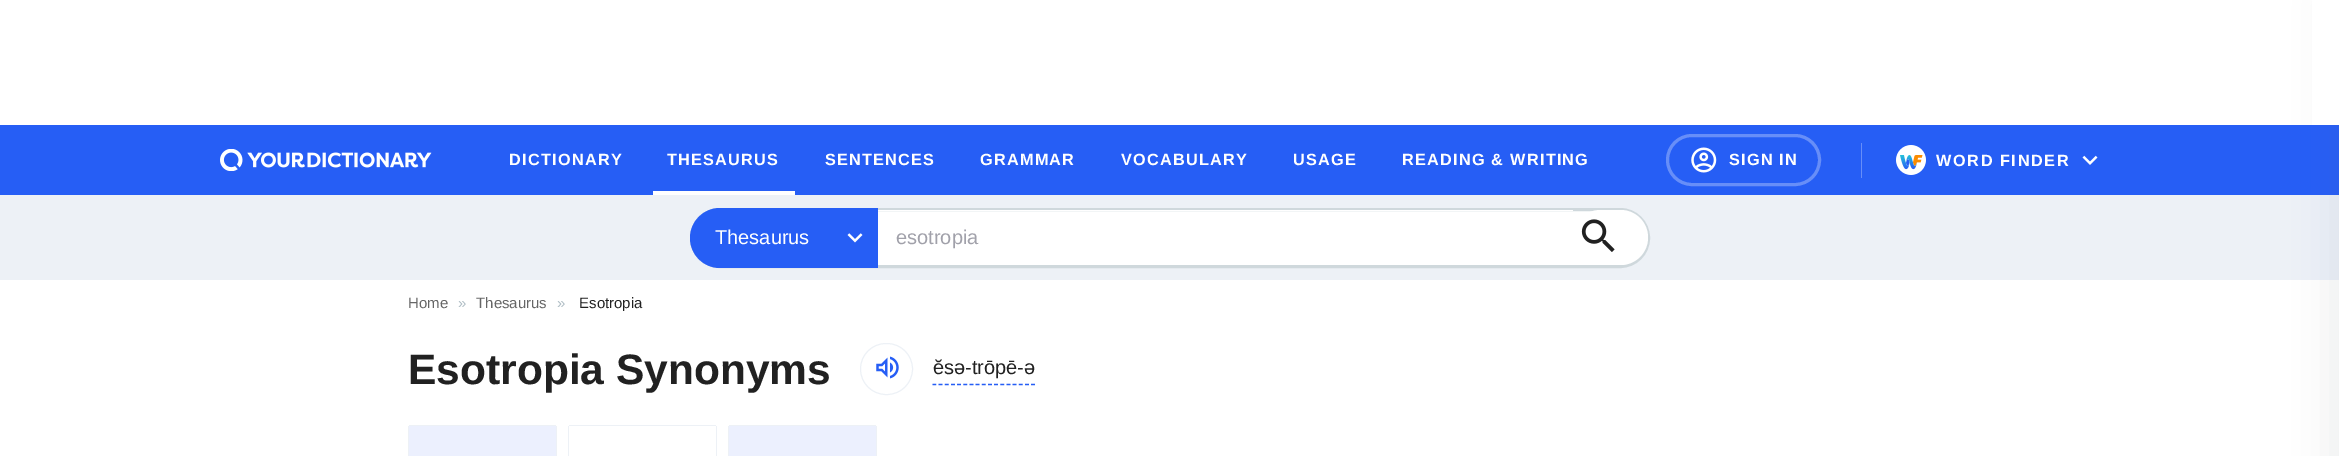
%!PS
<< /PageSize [2339 456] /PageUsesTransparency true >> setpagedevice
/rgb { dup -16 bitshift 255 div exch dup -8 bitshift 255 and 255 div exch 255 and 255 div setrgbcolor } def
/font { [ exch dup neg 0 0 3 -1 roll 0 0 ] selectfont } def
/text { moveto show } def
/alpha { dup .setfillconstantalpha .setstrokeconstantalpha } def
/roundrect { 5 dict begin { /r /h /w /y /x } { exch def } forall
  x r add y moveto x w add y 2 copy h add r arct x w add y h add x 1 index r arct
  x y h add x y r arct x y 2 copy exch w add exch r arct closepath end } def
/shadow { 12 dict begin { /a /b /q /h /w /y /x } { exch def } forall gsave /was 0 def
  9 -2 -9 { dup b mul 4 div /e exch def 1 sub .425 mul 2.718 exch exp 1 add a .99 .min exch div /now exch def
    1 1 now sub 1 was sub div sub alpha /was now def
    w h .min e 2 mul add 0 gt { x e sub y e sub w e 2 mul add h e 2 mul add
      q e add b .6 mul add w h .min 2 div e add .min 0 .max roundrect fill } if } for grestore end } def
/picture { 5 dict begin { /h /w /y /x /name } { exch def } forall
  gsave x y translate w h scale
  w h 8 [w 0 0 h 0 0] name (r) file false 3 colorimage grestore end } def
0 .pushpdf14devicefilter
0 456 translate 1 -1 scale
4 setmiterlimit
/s1 { /LiberationSans-Regular 20 font 16#FFFFFF rgb } def
/s2 { /LiberationSans-Regular 20 font 16#A1A1AA rgb } def
/s3 { /LiberationSans-Regular 15 font 16#666666 rgb } def
/s4 { /LiberationSans-Regular 15 font 16#B0BEC5 rgb } def
/s5 { /LiberationSans-Regular 15 font 16#212121 rgb } def
/s6 { /LiberationSans-Bold 42.5 font 16#212121 rgb } def
/s7 { /LiberationSans-Regular 20 font 16#212121 rgb } def
16#FFFFFF rgb
0 0 2339 456 rectfill
16#265EF5 rgb
0 125 2339 70 rectfill
16#EDF1F6 rgb
0 195 2339 85 rectfill
16#546E7A rgb
2334 1 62 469 0 19 0.12 shadow
16#FFFFFF rgb
2312 0 27 125 rectfill
(pic1.raw) 220 149 212 22 picture
/LiberationSans-Bold 16.25 font
509 165 moveto 1.25 0 (DICTIONARY) ashow
667 165 moveto 1.25 0 (THESAURUS) ashow
653 191 142 4 rectfill
825 165 moveto 1.25 0 (SENTENCES) ashow
980 165 moveto 1.25 0 (GRAMMAR) ashow
1121 165 moveto 1.25 0 (VOCABULARY) ashow
1293 165 moveto 1.25 0 (USAGE) ashow
1402 165 moveto 1.25 0 (READING & WRITING) ashow
16#678EF8 rgb
3 setlinewidth
1667.5 135.5 152 49 24.5 roundrect stroke
(pic2.raw) 1691 147 26 26 picture
16#FFFFFF rgb
1729 165 moveto 1.25 0 (SIGN IN) ashow
16#678EF8 rgb
1861 143 1 35 rectfill
(pic3.raw) 1896 145 30 30 picture
16#FFFFFF rgb
1936 166 moveto 1.6 0 (WORD FINDER) ashow
(pic4.raw) 2082 155 16 10 picture
691.5 209.5 957 57 28.5 roundrect gsave fill grestore
16#CFD8DC rgb
stroke
16#265EF5 rgb
720 208 moveto 878 208 lineto 878 268 lineto 720 268 lineto 703.5 268 690 254.5 690 238 curveto 690 221.5 703.5 208 720 208 curveto closepath fill
s1
(Thesaurus) 715 244 text
(pic5.raw) 847 233 16 10 picture
878 210 695 1 rectfill
s2
(esotropia) 896 244 text
16#FFFFFF rgb
1573 210 75 55 27.5 roundrect fill
(pic6.raw) 1581 219 34 33 picture
s3
(Home) 408 308 text
s4
(») 458 308 text
s3
(Thesaurus) 476 308 text
s4
(») 557 308 text
s5
(Esotropia) 579 308 text
s6
(Esotropia Synonyms) 408 384 text
16#EDF1F6 rgb
1 setlinewidth
860.5 343.5 52 51 25.5 roundrect stroke
(pic7.raw) 876 356 23 23 picture
16#265EF5 rgb
1.2 setlinewidth
[3.75 2.42] 0 setdash
932.5 384.5 moveto 1035 384.5 lineto stroke
s7
(ĕsə-trōpē-ə) 933 374 text
16#ECF0FE rgb
410 426 moveto 555 426 lineto 555.5 426 556 426.5 556 427 curveto 556 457 lineto 409 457 lineto 409 427 lineto 409 426.5 409.5 426 410 426 curveto closepath fill
16#EDF1F6 rgb
409 425 147 1 rectfill
556 426 1 30 rectfill
408 426 1 30 rectfill
569 425 147 1 rectfill
716 426 1 30 rectfill
568 426 1 30 rectfill
16#ECF0FE rgb
730 426 moveto 875 426 lineto 875.5 426 876 426.5 876 427 curveto 876 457 lineto 729 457 lineto 729 427 lineto 729 426.5 729.5 426 730 426 curveto closepath fill
16#EDF1F6 rgb
729 425 147 1 rectfill
876 426 1 30 rectfill
728 426 1 30 rectfill
.poppdf14devicefilter showpage
